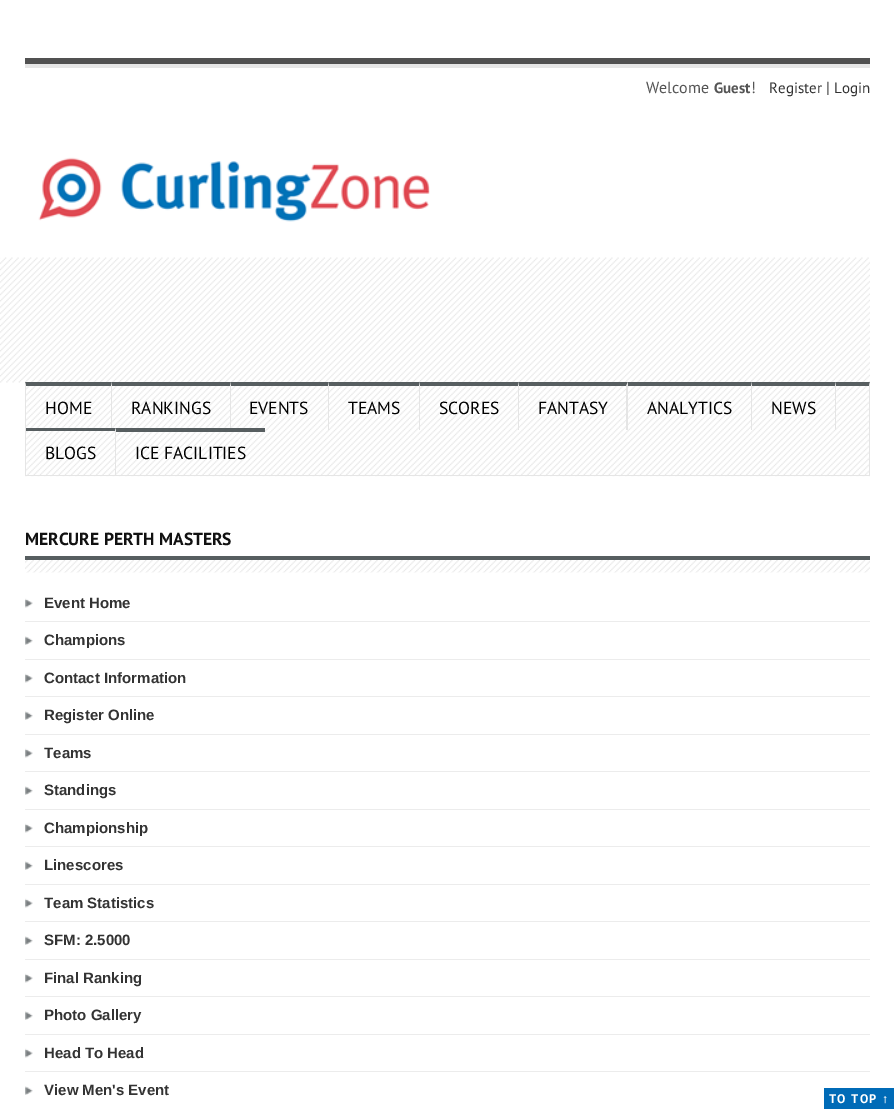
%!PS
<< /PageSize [894 1109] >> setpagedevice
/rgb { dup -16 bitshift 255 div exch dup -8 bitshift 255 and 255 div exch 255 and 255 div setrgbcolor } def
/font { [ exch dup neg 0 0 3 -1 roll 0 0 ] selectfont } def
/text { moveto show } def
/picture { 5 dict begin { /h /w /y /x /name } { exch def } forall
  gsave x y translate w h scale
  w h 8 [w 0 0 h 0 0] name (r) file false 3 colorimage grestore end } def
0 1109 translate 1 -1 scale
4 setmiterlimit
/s1 { /PTSans-Regular 16 font 16#555555 rgb } def
/s2 { /PTSans-Bold 15 font 16#555555 rgb } def
/s3 { /PTSans-Regular 15 font 16#333333 rgb } def
/s4 { /PTSans-Regular 17.5 font 16#000000 rgb } def
/s5 { /PTSans-Bold 17.5 font 16#111111 rgb } def
/s6 { /LiberationSans-Bold 15 font 16#333333 rgb } def
16#FFFFFF rgb
0 0 894 1109 rectfill
16#E6E6E6 rgb
25 64 845 4 rectfill
16#515151 rgb
25 58 845 6 rectfill
s1
(Welcome) 646 93 text
s2
(Guest) 714 93 text
s1
(!) 751 93 text
s3
(Register) 769 93 text
s1
(|) 826 93 text
s3
(Login) 834 93 text
(pic1.raw) 38 157 392 65 picture
(pic2.raw) 0 257 870 126 picture
(pic3.raw) 25 382 845 95 picture
16#575E60 rgb
25 382 moveto 870 382 lineto 869 386 lineto 26 386 lineto closepath fill
16#E5E5E5 rgb
870 382 moveto 870 476 lineto 869 475 lineto 869 386 lineto closepath fill
25 475 845 1 rectfill
25 476 moveto 25 382 lineto 26 386 lineto 26 475 lineto closepath fill
112 382 moveto 112 430 lineto 111 430 lineto 111 386 lineto closepath fill
s4
(HOME) 45 414 text
16#E5E5E5 rgb
231 382 moveto 231 430 lineto 230 430 lineto 230 386 lineto closepath fill
s4
(RANKINGS) 131 414 text
16#E5E5E5 rgb
329 382 moveto 329 430 lineto 328 430 lineto 328 386 lineto closepath fill
s4
(EVENTS) 249 414 text
16#E5E5E5 rgb
420 382 moveto 420 430 lineto 419 430 lineto 419 386 lineto closepath fill
s4
(TEAMS) 348 414 text
16#E5E5E5 rgb
519 382 moveto 519 430 lineto 518 430 lineto 518 386 lineto closepath fill
s4
(SCORES) 439 414 text
16#E5E5E5 rgb
628 382 moveto 628 430 lineto 626 430 lineto 626 386 lineto closepath fill
s4
(FANTASY) 538 414 text
16#E5E5E5 rgb
752 382 moveto 752 430 lineto 751 430 lineto 751 386 lineto closepath fill
s4
(ANALYTICS) 647 414 text
16#E5E5E5 rgb
836 382 moveto 836 430 lineto 835 430 lineto 835 386 lineto closepath fill
s4
(NEWS) 771 414 text
16#575E60 rgb
26 428 moveto 116 428 lineto 115 431 lineto 26 431 lineto closepath fill
16#E5E5E5 rgb
116 428 moveto 116 475 lineto 115 475 lineto 115 431 lineto closepath fill
s4
(BLOGS) 45 459 text
16#575E60 rgb
116 428 149 4 rectfill
s4
(ICE FACILITIES) 135 459 text
s5
(MERCURE PERTH MASTERS) 25 545 text
(pic4.raw) 25 560 845 13 picture
16#575E60 rgb
25 556 845 4 rectfill
(pic5.raw) 25 598 8 10 picture
16#ECECEC rgb
25 621 845 1 rectfill
s6
(Event Home) 44 608 text
(pic6.raw) 25 636 8 9 picture
16#ECECEC rgb
25 659 845 1 rectfill
s6
(Champions) 44 645 text
(pic5.raw) 25 673 8 10 picture
16#ECECEC rgb
25 696 845 1 rectfill
s6
(Contact Information) 44 683 text
(pic6.raw) 25 711 8 9 picture
16#ECECEC rgb
25 734 845 1 rectfill
s6
(Register Online) 44 720 text
(pic5.raw) 25 748 8 10 picture
16#ECECEC rgb
25 771 845 1 rectfill
s6
(Teams) 44 758 text
(pic6.raw) 25 786 8 9 picture
16#ECECEC rgb
25 809 845 1 rectfill
s6
(Standings) 44 795 text
(pic5.raw) 25 823 8 10 picture
16#ECECEC rgb
25 846 845 1 rectfill
s6
(Championship) 44 833 text
(pic6.raw) 25 861 8 9 picture
16#ECECEC rgb
25 884 845 1 rectfill
s6
(Linescores) 44 870 text
(pic5.raw) 25 898 8 10 picture
16#ECECEC rgb
25 921 845 1 rectfill
s6
(Team Statistics) 44 908 text
(pic6.raw) 25 936 8 9 picture
16#ECECEC rgb
25 959 845 1 rectfill
s6
(SFM: 2.5000) 44 945 text
(pic5.raw) 25 973 8 10 picture
16#ECECEC rgb
25 996 845 1 rectfill
s6
(Final Ranking) 44 983 text
(pic6.raw) 25 1011 8 9 picture
16#ECECEC rgb
25 1034 845 1 rectfill
s6
(Photo Gallery) 44 1020 text
(pic5.raw) 25 1048 8 10 picture
16#ECECEC rgb
25 1071 845 1 rectfill
s6
(Head To Head) 44 1058 text
(pic6.raw) 25 1086 8 9 picture
(View Men's Event) 44 1095 text
16#006BB7 rgb
824 1088 70 21 rectfill
/PTSans-Bold 12.5 font
16#FFFFFF rgb
829 1103 moveto 1.25 0 (TO TOP) ashow
/LiberationSerif-Bold 12.5 font
882 1103 moveto 1.25 0 (↑) ashow
showpage
